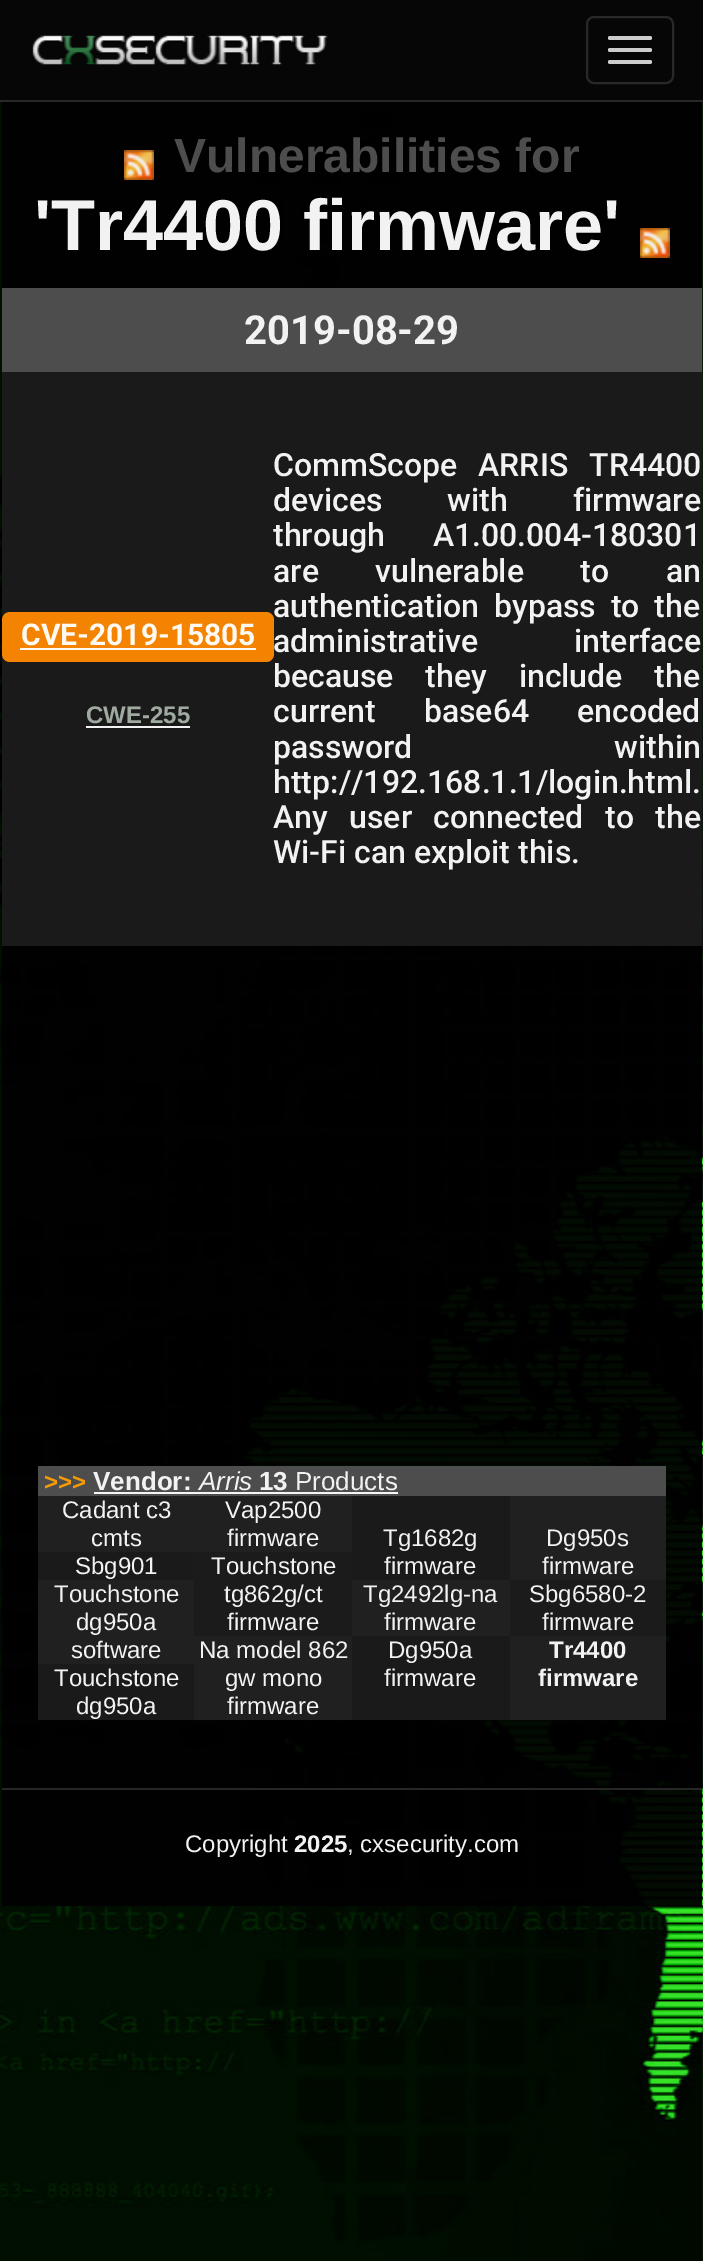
%!PS
<< /PageSize [703 2261] /PageUsesTransparency true >> setpagedevice
/rgb { dup -16 bitshift 255 div exch dup -8 bitshift 255 and 255 div exch 255 and 255 div setrgbcolor } def
/font { [ exch dup neg 0 0 3 -1 roll 0 0 ] selectfont } def
/text { moveto show } def
/alpha { dup .setfillconstantalpha .setstrokeconstantalpha } def
/roundrect { 5 dict begin { /r /h /w /y /x } { exch def } forall
  x r add y moveto x w add y 2 copy h add r arct x w add y h add x 1 index r arct
  x y h add x y r arct x y 2 copy exch w add exch r arct closepath end } def
/picture { 5 dict begin { /h /w /y /x /name } { exch def } forall
  gsave x y translate w h scale
  w h 8 [w 0 0 h 0 0] name (r) file false 3 colorimage grestore end } def
0 .pushpdf14devicefilter
0 2261 translate 1 -1 scale
4 setmiterlimit
/s1 { /LiberationSans-Bold 48 font 16#4C4D4C rgb } def
/s2 { /LiberationSans-Bold 72 font 16#F2F2F2 rgb } def
/s3 { /Roboto-Bold 40 font 16#F2F2F2 rgb } def
/s4 { /Roboto-Bold 30 font 16#FEF9F2 rgb } def
/s5 { /LiberationSans-Bold 24 font 16#A0AAA0 rgb } def
/s6 { /Roboto-Medium 32 font 16#F2F2F2 rgb } def
/s7 { /LiberationSans-Bold 24 font 16#F69B04 rgb } def
/s8 { /LiberationSans-Bold 26 font 16#F2F2F2 rgb } def
/s9 { /LiberationSans-Italic 26 font 16#F2F2F2 rgb } def
/s10 { /LiberationSans-Regular 26 font 16#F2F2F2 rgb } def
/s11 { /LiberationSans-Regular 24 font 16#F2F2F2 rgb } def
/s12 { /LiberationSans-Bold 24 font 16#F2F2F2 rgb } def
16#FFFFFF rgb
0 0 703 2261 rectfill
(pic1.raw) 0 102 703 2159 picture
16#060606 rgb
0 0 703 100 rectfill
16#282828 rgb
0 100 703 2 rectfill
(pic2.raw) 32 35 296 30 picture
2 setlinewidth
587 17 86 66 7 roundrect stroke
16#CCCCCC rgb
608 36 44 4 2 roundrect fill
608 48 44 4 2 roundrect fill
608 60 44 4 2 roundrect fill
0.95 alpha
16#000000 rgb
2 102 700 1804 rectfill
1 alpha
(pic3.raw) 124 150 30 30 picture
s1
(Vulnerabilities for) 174 172 text
s2
('Tr4400 firmware') 34 250 text
(pic3.raw) 640 228 30 30 picture
16#4C4D4C rgb
2 288 700 84 rectfill
s3
(2019-08-29) 244 344 text
16#1A1A1A rgb
2 372 700 574 rectfill
16#F48301 rgb
2 612 272 50 8 roundrect fill
s4
(CVE-2019-15805) 21 645 text
20 648 236 2 rectfill
s5
(CWE-255) 86 723 text
16#F2F3F2 rgb
86 726 104 2 rectfill
/Roboto-Medium 32 font
16#F2F2F2 rgb
273 476 moveto 13 0 32 (CommScope ARRIS TR4400) widthshow
273 511 moveto 57 0 32 (devices with firmware) widthshow
273 546 moveto 40 0 32 (through A1.00.004-180301) widthshow
273 582 moveto 48.5 0 32 (are vulnerable to an) widthshow
273 617 moveto 7 0 32 (authentication bypass to the) widthshow
273 652 moveto 88 0 32 (administrative interface) widthshow
273 687 moveto 24 0 32 (because they include the) widthshow
273 722 moveto 40 0 32 (current base64 encoded) widthshow
273 758 moveto 194 0 32 (password within) widthshow
(http://192.168.1.1/login.html.) 273 793 text
273 828 moveto 13.5 0 32 (Any user connected to the) widthshow
(Wi-Fi can exploit this.) 273 863 text
0.95 alpha
16#505150 rgb
38 1466 628 30 rectfill
1 alpha
s7
(>>>) 44 1490 text
s8
(Vendor:) 93 1490 text
16#F6F6F6 rgb
94 1492 304 2 rectfill
s9
(Arris) 199 1490 text
s8
(13) 259 1490 text
s10
(Products) 295 1490 text
0.95 alpha
16#1B1B1B rgb
38 1496 472 224 rectfill
1 alpha
16#202020 rgb
38 1496 156 56 rectfill
s11
(Cadant c3) 62 1518 text
(cmts) 91 1546 text
(Sbg901) 75 1574 text
16#202020 rgb
38 1580 156 84 rectfill
s11
(Touchstone) 54 1602 text
(dg950a) 76 1630 text
(software) 71 1658 text
(Touchstone) 54 1686 text
(dg950a) 76 1714 text
16#202020 rgb
194 1496 158 224 rectfill
s11
(Vap2500) 225 1518 text
(firmware) 227 1546 text
16#1B1B1B rgb
194 1552 158 84 rectfill
s11
(Touchstone) 211 1574 text
(tg862g/ct) 224 1602 text
(firmware) 227 1630 text
(Na model 862) 199 1658 text
(gw mono) 225 1686 text
(firmware) 227 1714 text
(Tg1682g) 383 1546 text
(firmware) 384 1574 text
16#202020 rgb
352 1580 158 56 rectfill
s11
(Tg2492lg-na) 363 1602 text
(firmware) 384 1630 text
(Dg950a) 388 1658 text
(firmware) 384 1686 text
16#202020 rgb
510 1496 156 224 rectfill
s11
(Dg950s) 546 1546 text
(firmware) 542 1574 text
16#1B1B1B rgb
510 1580 156 56 rectfill
s11
(Sbg6580-2) 529 1602 text
(firmware) 542 1630 text
s12
(Tr4400) 549 1658 text
(firmware) 538 1686 text
0.95 alpha
16#282828 rgb
2 1788 700 2 rectfill
1 alpha
s11
(Copyright) 185 1852 text
s12
(2025) 294 1852 text
s11
(, cxsecurity.com) 347 1852 text
.poppdf14devicefilter showpage
